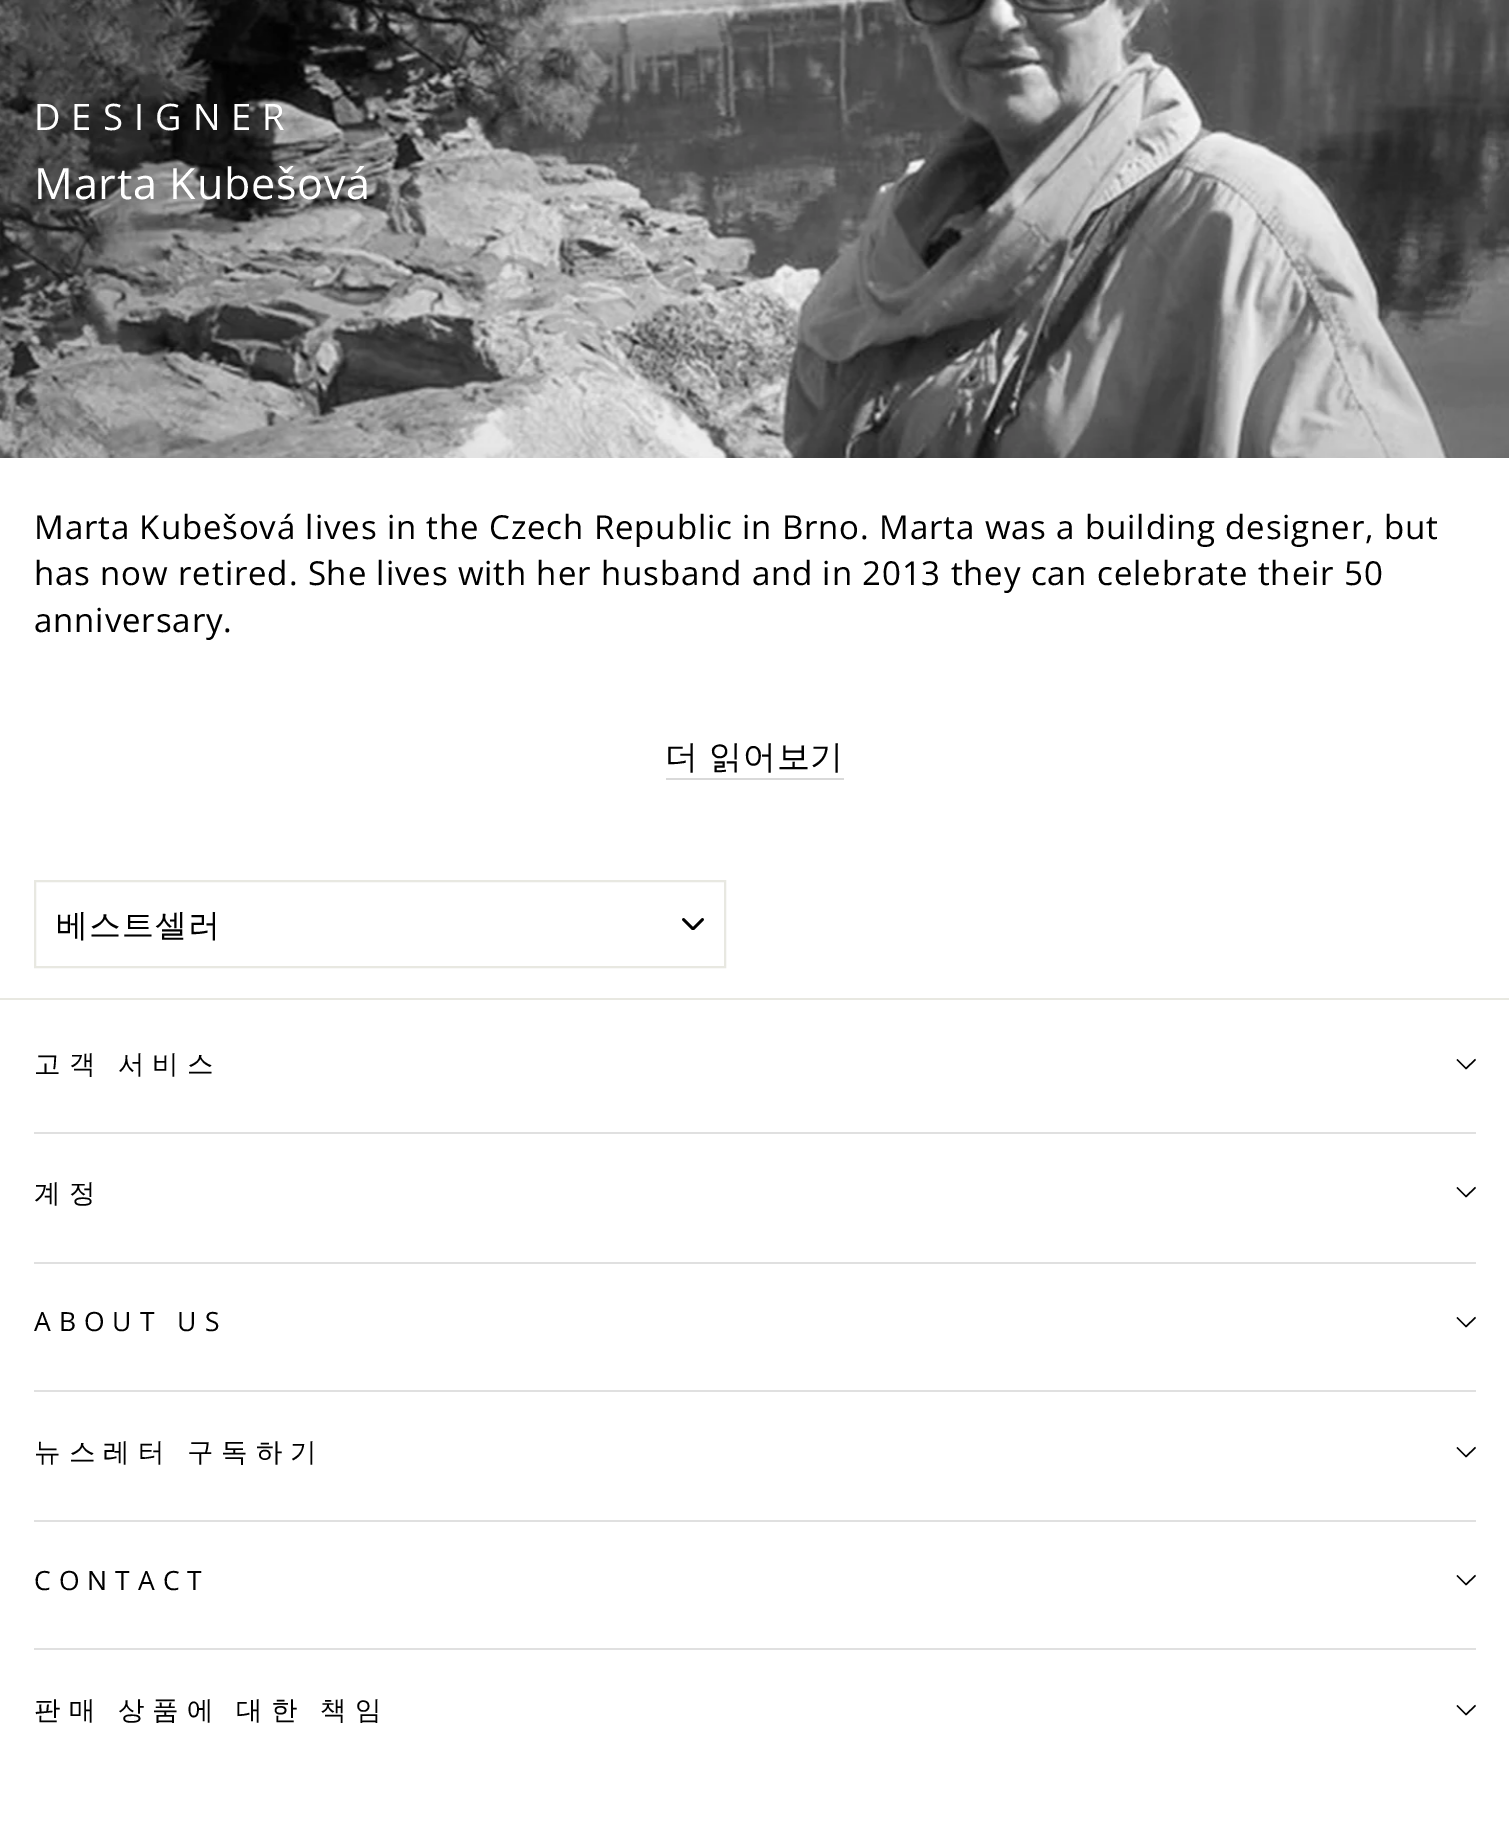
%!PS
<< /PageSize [1509 1821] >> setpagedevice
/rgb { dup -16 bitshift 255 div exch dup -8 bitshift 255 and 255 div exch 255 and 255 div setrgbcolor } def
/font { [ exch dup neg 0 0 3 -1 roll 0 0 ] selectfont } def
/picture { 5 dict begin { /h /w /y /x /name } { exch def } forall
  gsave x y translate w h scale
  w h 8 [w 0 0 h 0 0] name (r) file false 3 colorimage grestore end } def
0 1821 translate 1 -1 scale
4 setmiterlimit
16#FFFFFF rgb
0 0 1509 1821 rectfill
(pic1.raw) 0 0 1509 458 picture
/OpenSans-Regular 36.5 font
34 130 moveto 11 0 (DESIGNER) ashow
/OpenSans-Regular 43 font
34 199 moveto 0.83 0 (Marta Kubešová) ashow
/OpenSans-Regular 33.1 font
16#000000 rgb
34 539 moveto 0.83 0 (Marta Kubešová lives in the Czech Republic in Brno. Marta was a building designer, but) ashow
34 585 moveto 0.83 0 (has now retired. She lives with her husband and in 2013 they can celebrate their 50) ashow
34 632 moveto 0.83 0 (anniversary.) ashow
16#D9D9D9 rgb
666 778 178 2 rectfill
/WenQuanYiZenHei-Medium 33.1 font
16#000000 rgb
665 768 moveto -1 0 32 0.83 0 (더 읽어보기) awidthshow
(pic2.raw) 682 918 22 12 picture
16#E8E8E1 rgb
2 setlinewidth
35 881 690 86 rectstroke
/WenQuanYiZenHei-Medium 32 font
16#000000 rgb
56 936 moveto 1 0 (베스트셀러) ashow
16#E8E8E1 rgb
0 998 1509 2 rectfill
/WenQuanYiZenHei-Medium 26.5 font
16#000000 rgb
34 1073 moveto -1 0 32 8 0 (고객 서비스) awidthshow
1.4 setlinewidth
1457 1059.5 moveto 1466 1068.5 lineto 1475.5 1059.5 lineto stroke
16#E0E0E0 rgb
34 1132 1442 2 rectfill
16#000000 rgb
34 1202 moveto 8 0 (계정) ashow
1457 1187.5 moveto 1466 1196.5 lineto 1475.5 1187.5 lineto stroke
16#E0E0E0 rgb
34 1262 1442 2 rectfill
/OpenSans-Regular 26.5 font
16#000000 rgb
34 1331 moveto 8 0 (ABOUT US) ashow
1457 1317.5 moveto 1466 1326.5 lineto 1475.5 1317.5 lineto stroke
16#E0E0E0 rgb
34 1390 1442 2 rectfill
/WenQuanYiZenHei-Medium 26.5 font
16#000000 rgb
34 1461 moveto -1 0 32 8 0 (뉴스레터 구독하기) awidthshow
1457 1447.5 moveto 1466 1456.5 lineto 1475.5 1447.5 lineto stroke
16#E0E0E0 rgb
34 1520 1442 2 rectfill
/OpenSans-Regular 26.5 font
16#000000 rgb
34 1590 moveto 8 0 (CONTACT) ashow
1457 1575.5 moveto 1466 1584.5 lineto 1475.5 1575.5 lineto stroke
16#E0E0E0 rgb
34 1648 1442 2 rectfill
/WenQuanYiZenHei-Medium 26.5 font
16#000000 rgb
34 1719 moveto -1 0 32 8 0 (판매 상품에 대한 책임) awidthshow
1457 1705.5 moveto 1466 1714.5 lineto 1475.5 1705.5 lineto stroke
showpage
